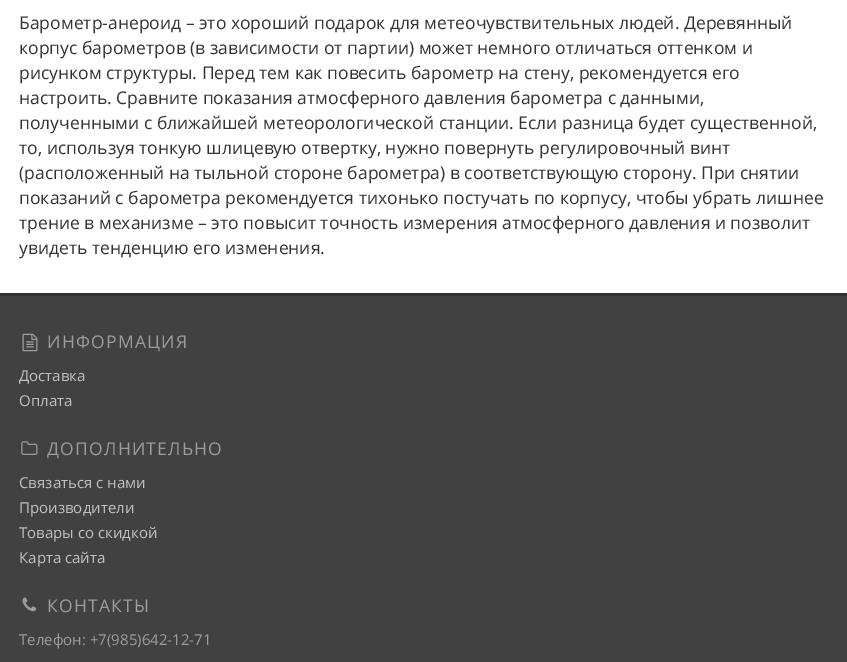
%!PS
<< /PageSize [847 662] >> setpagedevice
/rgb { dup -16 bitshift 255 div exch dup -8 bitshift 255 and 255 div exch 255 and 255 div setrgbcolor } def
/font { [ exch dup neg 0 0 3 -1 roll 0 0 ] selectfont } def
/text { moveto show } def
/picture { 5 dict begin { /h /w /y /x /name } { exch def } forall
  gsave x y translate w h scale
  w h 8 [w 0 0 h 0 0] name (r) file false 3 colorimage grestore end } def
0 662 translate 1 -1 scale
4 setmiterlimit
/s1 { /OpenSans-Regular 17.5 font 16#333333 rgb } def
/s2 { /OpenSans-Regular 15 font 16#C0C0C0 rgb } def
/s3 { /OpenSans-Regular 15 font 16#9C9C9C rgb } def
16#FFFFFF rgb
0 0 847 662 rectfill
s1
(Барометр-анероид – это хороший подарок для метеочувствительных людей. Деревянный) 19 29 text
(корпус барометров \(в зависимости от партии\) может немного отличаться оттенком и) 19 54 text
(рисунком структуры. Перед тем как повесить барометр на стену, рекомендуется его) 19 79 text
(настроить. Сравните показания атмосферного давления барометра с данными,) 19 104 text
(полученными с ближайшей метеорологической станции. Если разница будет существенной,) 19 129 text
(то, используя тонкую шлицевую отвертку, нужно повернуть регулировочный винт) 19 154 text
(\(расположенный на тыльной стороне барометра\) в соответствующую сторону. При снятии) 19 179 text
(показаний с барометра рекомендуется тихонько постучать по корпусу, чтобы убрать лишнее) 19 204 text
(трение в механизме – это повысит точность измерения атмосферного давления и позволит) 19 229 text
(увидеть тенденцию его изменения.) 19 254 text
16#414141 rgb
0 296 847 366 rectfill
16#333233 rgb
0 293 847 3 rectfill
(pic1.raw) 22 333 16 19 picture
16#9C9C9C rgb
47 348 moveto 1.25 0 (ИНФОРМАЦИЯ) ashow
s2
(Доставка) 19 381 text
(Оплата) 19 406 text
(pic2.raw) 21 441 17 14 picture
/OpenSans-Regular 17.5 font
16#9C9C9C rgb
47 455 moveto 1.25 0 (ДОПОЛНИТЕЛЬНО) ashow
s2
(Связаться с нами) 19 488 text
(Производители) 19 513 text
(Товары со скидкой) 19 538 text
(Карта сайта) 19 563 text
(pic3.raw) 22 597 15 15 picture
/OpenSans-Regular 17.5 font
16#9C9C9C rgb
47 612 moveto 1.25 0 (КОНТАКТЫ) ashow
s3
(Телефон: +7\(985\)642-12-71) 19 645 text
showpage
